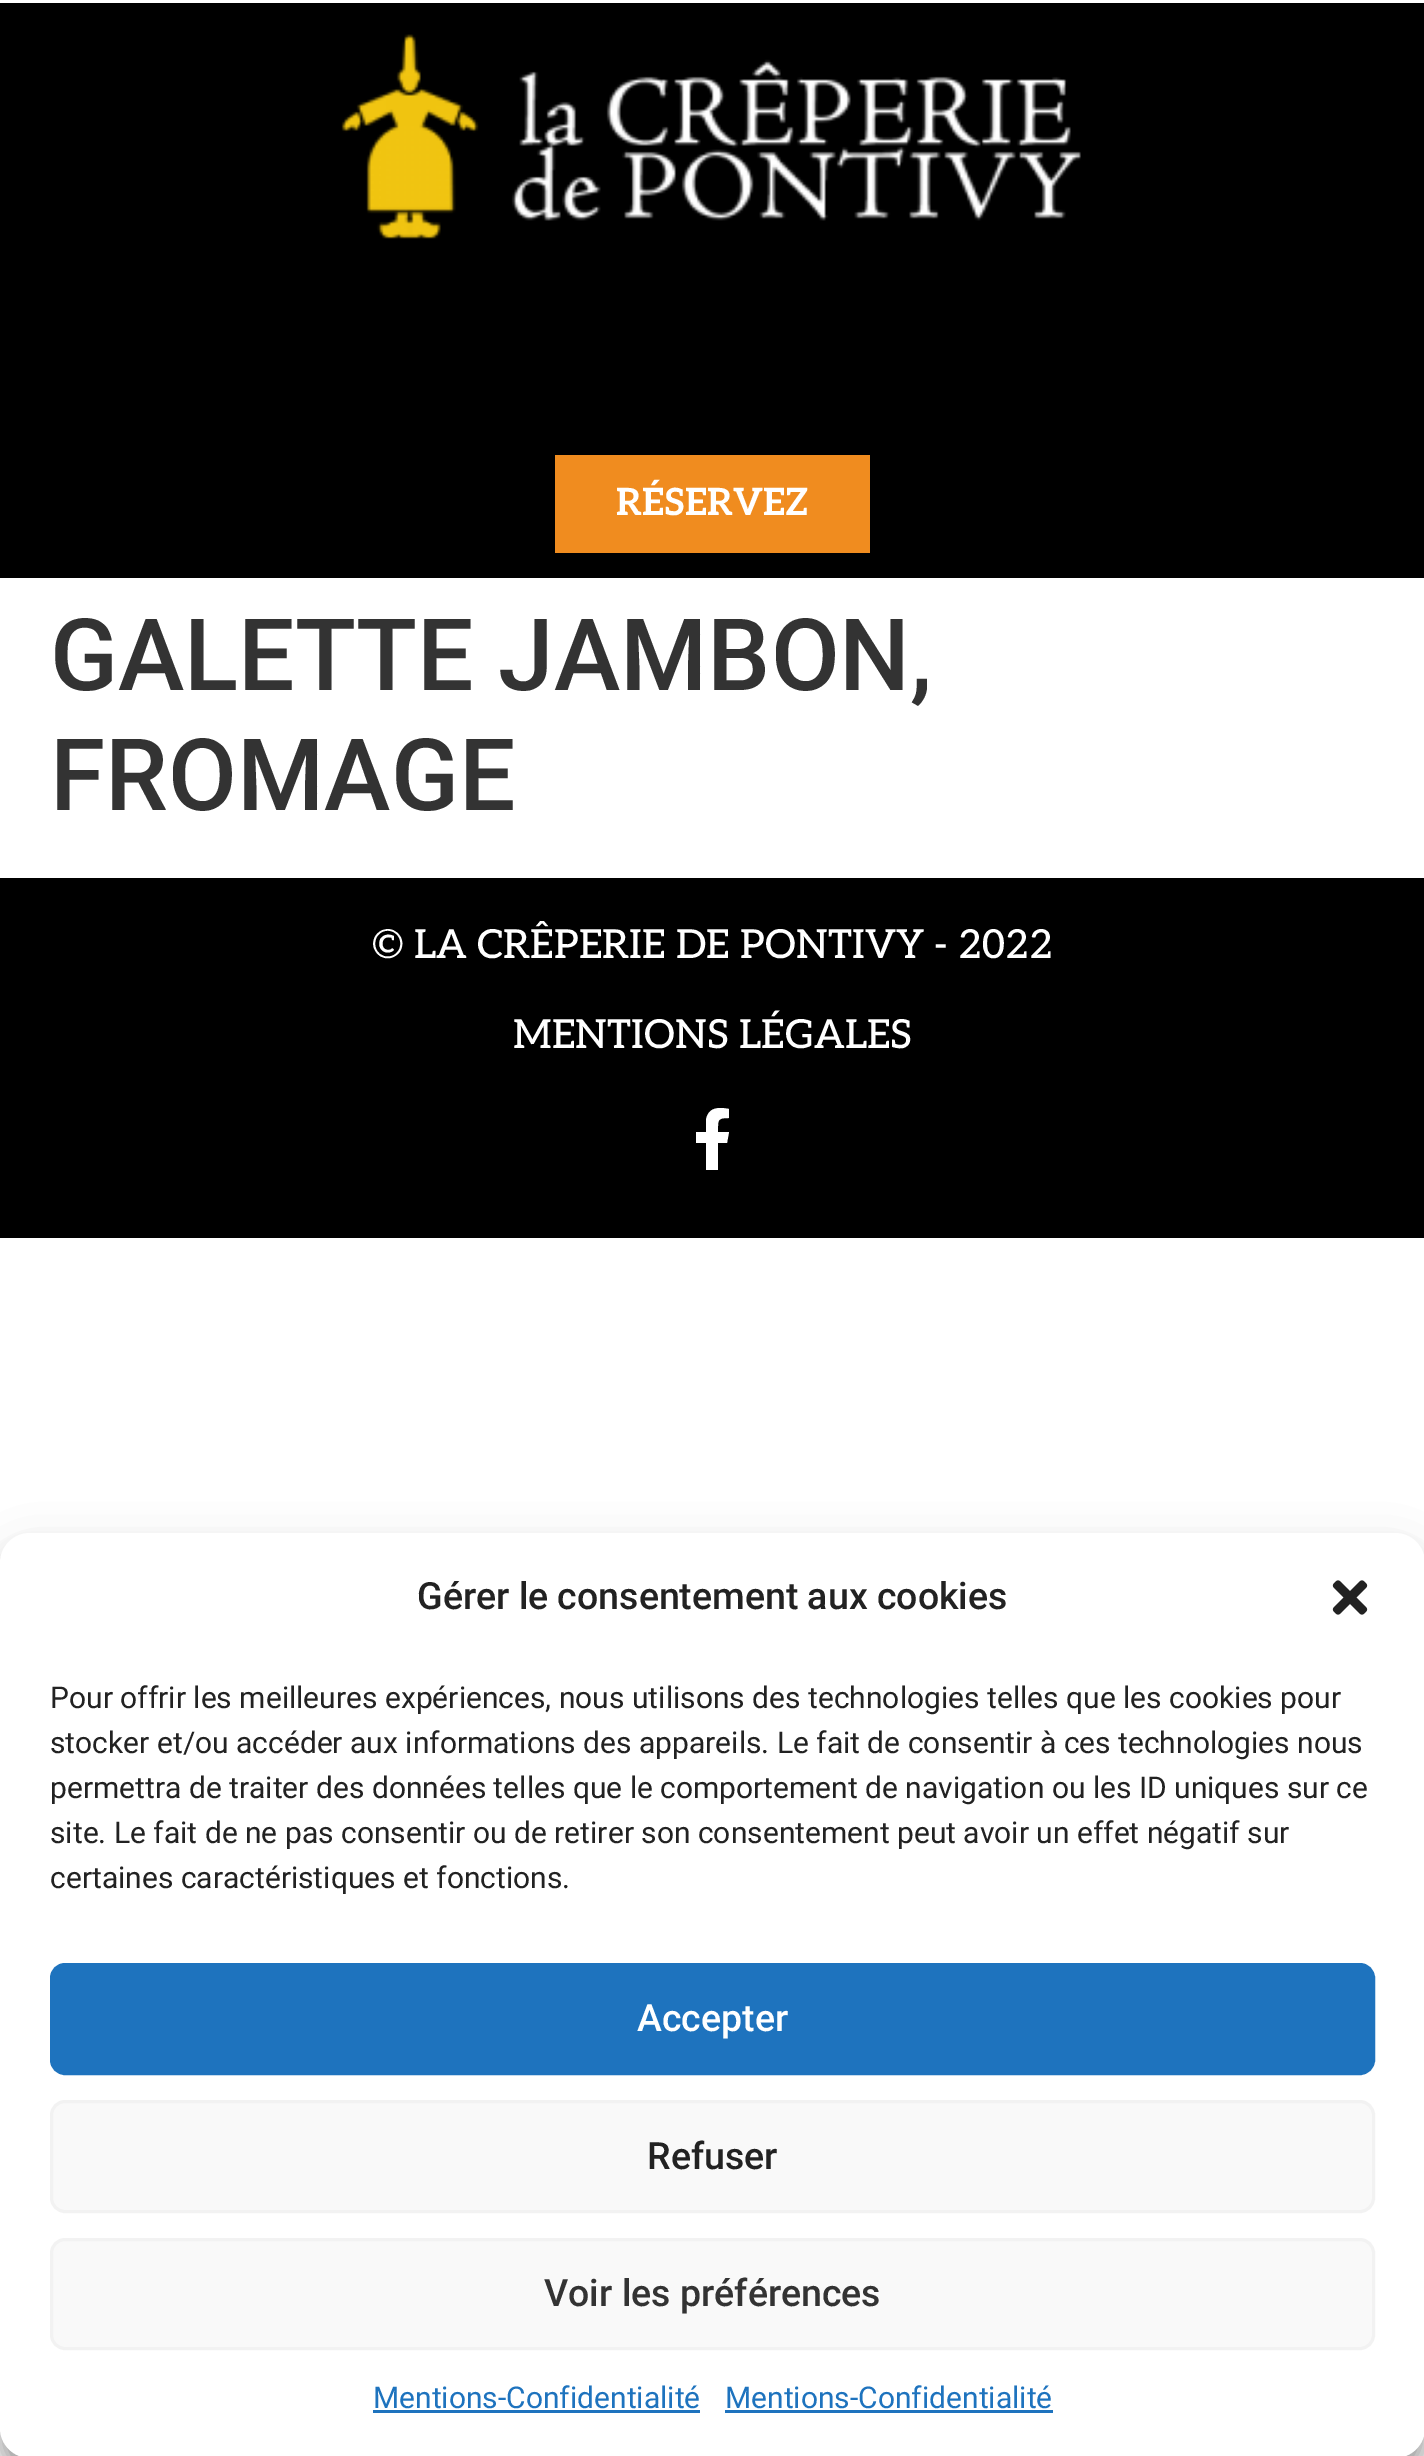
%!PS
<< /PageSize [1424 2456] /PageUsesTransparency true >> setpagedevice
/rgb { dup -16 bitshift 255 div exch dup -8 bitshift 255 and 255 div exch 255 and 255 div setrgbcolor } def
/font { [ exch dup neg 0 0 3 -1 roll 0 0 ] selectfont } def
/text { moveto show } def
/alpha { dup .setfillconstantalpha .setstrokeconstantalpha } def
/roundrect { 5 dict begin { /r /h /w /y /x } { exch def } forall
  x r add y moveto x w add y 2 copy h add r arct x w add y h add x 1 index r arct
  x y h add x y r arct x y 2 copy exch w add exch r arct closepath end } def
/shadow { 12 dict begin { /a /b /q /h /w /y /x } { exch def } forall gsave /was 0 def
  9 -2 -9 { dup b mul 4 div /e exch def 1 sub .425 mul 2.718 exch exp 1 add a .99 .min exch div /now exch def
    1 1 now sub 1 was sub div sub alpha /was now def
    w h .min e 2 mul add 0 gt { x e sub y e sub w e 2 mul add h e 2 mul add
      q e add b .6 mul add w h .min 2 div e add .min 0 .max roundrect fill } if } for grestore end } def
/picture { 5 dict begin { /h /w /y /x /name } { exch def } forall
  gsave x y translate w h scale
  w h 8 [w 0 0 h 0 0] name (r) file false 3 colorimage grestore end } def
0 .pushpdf14devicefilter
0 2456 translate 1 -1 scale
4 setmiterlimit
/s1 { /Aleo-Bold 37.5 font 16#FFFFFF rgb } def
/s2 { /Roboto-Medium 100 font 16#333333 rgb } def
/s3 { /Aleo-Medium 40 font 16#FFFFFF rgb } def
/s4 { /Roboto-Medium 37.5 font 16#222222 rgb } def
/s5 { /Roboto-Regular 30 font 16#222222 rgb } def
/s6 { /Roboto-Medium 37.5 font 16#FFFFFF rgb } def
/s7 { /Roboto-Medium 37.5 font 16#333333 rgb } def
/s8 { /Roboto-Regular 30 font 16#1E73BE rgb } def
16#FFFFFF rgb
0 0 1424 2456 rectfill
16#000000 rgb
0 3 1424 575 rectfill
(pic1.raw) 341 34 740 205 picture
16#F08C1F rgb
555 455 315 98 rectfill
s1
(RÉSERVEZ) 616 515 text
s2
(GALETTE JAMBON,) 50 690 text
(FROMAGE) 50 810 text
16#000000 rgb
0 878 1424 360 rectfill
s3
(© LA CRÊPERIE DE PONTIVY - 2022) 372 958 text
(MENTIONS LÉGALES) 513 1048 text
727 1143 moveto 718 1143 lineto 718 1170 lineto 706 1170 lineto 706 1143 lineto 696 1143 lineto 696 1132 lineto 706 1132 lineto 706 1120 lineto 708 1107 719 1107 729 1109 curveto 729 1118 lineto 717 1118 718 1120 718 1132 curveto 729 1132 lineto closepath fill
16#000000 rgb
0 1548 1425 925 30 7.5 0.23 shadow
0 1558 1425 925 30 25 0.19 shadow
16#FFFFFF rgb
0 1533 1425 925 30 roundrect fill
s4
(Gérer le consentement aux cookies) 417 1609 text
(pic2.raw) 1332 1580 36 35 picture
s5
(Pour offrir les meilleures expériences, nous utilisons des technologies telles que les cookies pour) 50 1708 text
(stocker et/ou accéder aux informations des appareils. Le fait de consentir à ces technologies nous) 50 1753 text
(permettra de traiter des données telles que le comportement de navigation ou les ID uniques sur ce) 50 1798 text
(site. Le fait de ne pas consentir ou de retirer son consentement peut avoir un effet négatif sur) 50 1843 text
(certaines caractéristiques et fonctions.) 50 1888 text
16#1E73BE rgb
51.5 1964.5 1322 109 13.5 roundrect gsave fill grestore
3 setlinewidth
stroke
s6
(Accepter) 637 2031 text
16#F9F9F9 rgb
51.5 2101.5 1322 110 13.5 roundrect gsave fill grestore
16#F2F2F2 rgb
stroke
s4
(Refuser) 647 2169 text
16#F9F9F9 rgb
51.5 2239.5 1322 109 13.5 roundrect gsave fill grestore
16#F2F2F2 rgb
stroke
s7
(Voir les préférences) 544 2306 text
s8
(Mentions-Confidentialité) 373 2408 text
373 2410 327 3 rectfill
(Mentions-Confidentialité) 725 2408 text
725 2410 328 3 rectfill
.poppdf14devicefilter showpage
